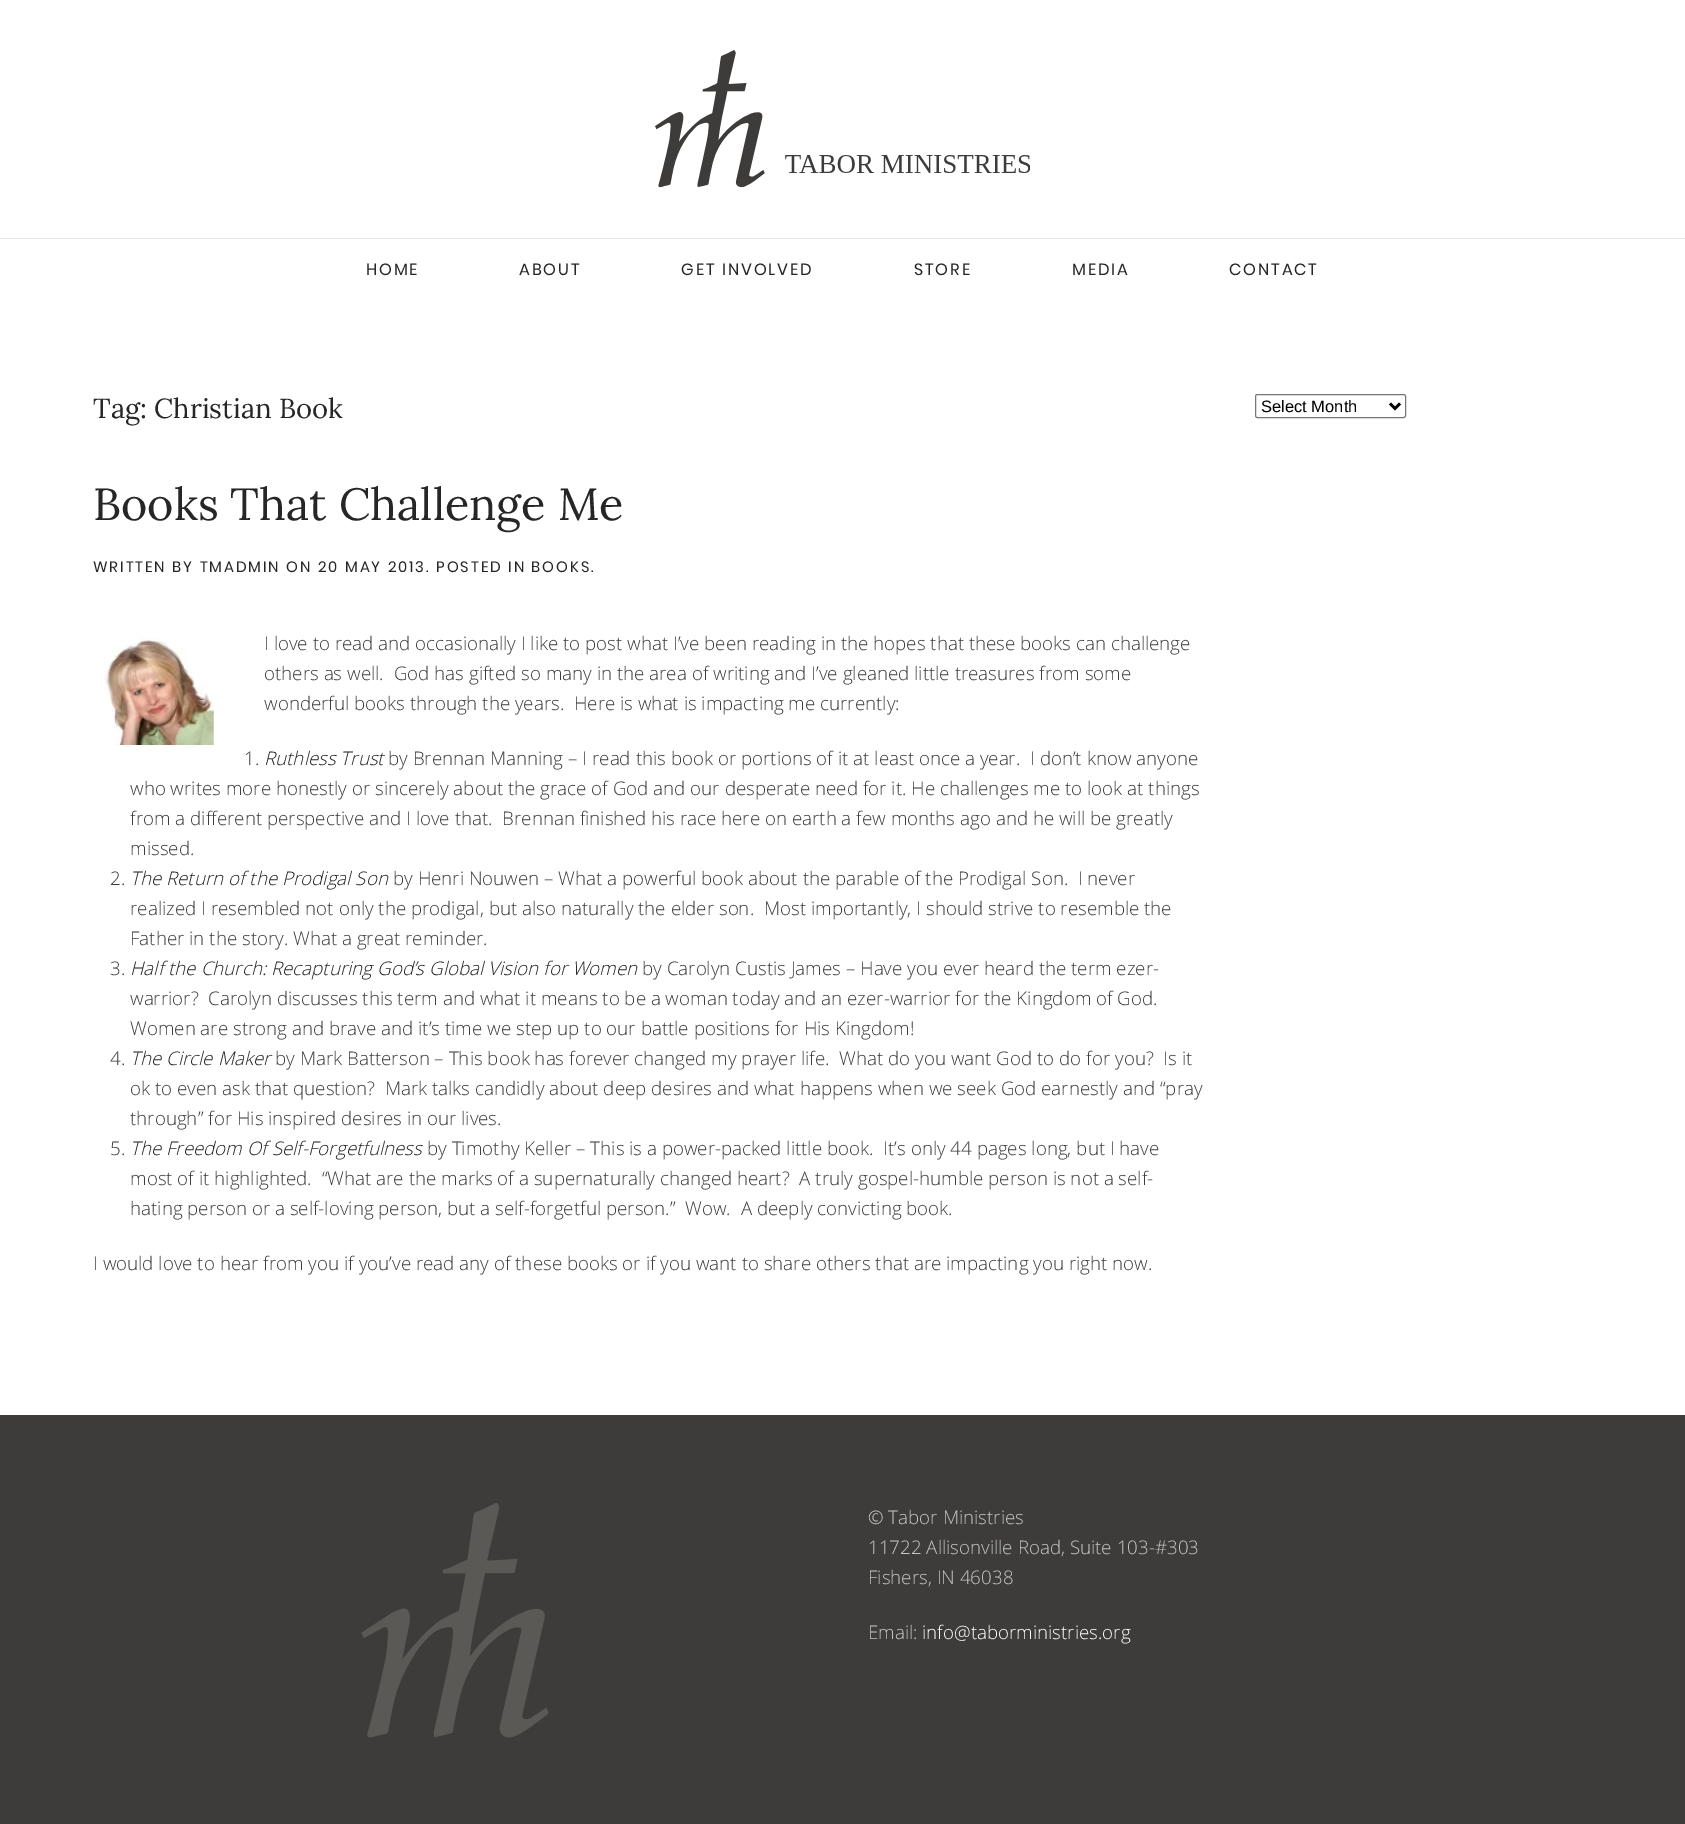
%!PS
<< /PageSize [1685 1824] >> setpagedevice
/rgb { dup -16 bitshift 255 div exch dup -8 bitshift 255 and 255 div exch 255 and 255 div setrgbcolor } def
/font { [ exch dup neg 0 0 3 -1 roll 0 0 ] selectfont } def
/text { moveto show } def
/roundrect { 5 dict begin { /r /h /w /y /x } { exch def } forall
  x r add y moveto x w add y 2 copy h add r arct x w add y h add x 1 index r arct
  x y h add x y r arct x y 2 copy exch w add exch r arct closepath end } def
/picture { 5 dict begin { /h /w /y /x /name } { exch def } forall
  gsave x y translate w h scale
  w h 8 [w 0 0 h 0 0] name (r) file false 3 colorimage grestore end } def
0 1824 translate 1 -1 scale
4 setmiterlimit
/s1 { /Lora-Regular 27.5 font 16#262626 rgb } def
/s2 { /Lora-Regular 45 font 16#262626 rgb } def
/s3 { /OpenSans-Light 18.75 font 16#3C3C3C rgb } def
/s4 { /OpenSans-LightItalic 18.75 font 16#262626 rgb } def
/s5 { /LiberationSans-Regular 16.5 font 16#000000 rgb } def
/s6 { /OpenSans-Light 18.75 font 16#C5C5C4 rgb } def
/s7 { /OpenSans-Light 18.75 font 16#FFFFFF rgb } def
16#FFFFFF rgb
0 0 1685 1824 rectfill
16#E5E5E5 rgb
0 238 1685 1 rectfill
(pic1.raw) 655 50 375 138 picture
/Poppins-Regular 16.25 font
16#262626 rgb
366 275 moveto 1.88 0 (HOME) ashow
519 275 moveto 1.88 0 (ABOUT) ashow
681 275 moveto 1.88 0 (GET INVOLVED) ashow
914 275 moveto 1.88 0 (STORE) ashow
1072 275 moveto 1.88 0 (MEDIA) ashow
1229 275 moveto 1.88 0 (CONTACT) ashow
s1
(Tag: Christian Book) 93 418 text
s2
(Books That Challenge Me) 93 520 text
/Poppins-Regular 15 font
93 572 moveto 1.88 0 (WRITTEN BY TMADMIN ON 20 MAY 2013. POSTED IN BOOKS.) ashow
(pic2.raw) 103 637 111 108 picture
s3
(I love to read and occasionally I like to post what I’ve been reading in the hopes that these books can challenge) 264 650 text
(others as well.  God has gifted so many in the area of writing and I’ve gleaned little treasures from some) 264 680 text
(wonderful books through the years.  Here is what is impacting me currently:) 264 710 text
(1.) 244 765 text
s4
(Ruthless Trust) 264 765 text
s3
(by Brennan Manning – I read this book or portions of it at least once a year.  I don’t know anyone) 388 765 text
(who writes more honestly or sincerely about the grace of God and our desperate need for it. He challenges me to look at things) 130 795 text
(from a different perspective and I love that.  Brennan finished his race here on earth a few months ago and he will be greatly) 130 825 text
(missed.) 130 855 text
(2.) 110 885 text
s4
(The Return of the Prodigal Son) 130 885 text
s3
(by Henri Nouwen – What a powerful book about the parable of the Prodigal Son.  I never) 393 885 text
(realized I resembled not only the prodigal, but also naturally the elder son.  Most importantly, I should strive to resemble the) 130 915 text
(Father in the story. What a great reminder.) 130 945 text
(3.) 110 975 text
s4
(Half the Church: Recapturing God’s Global Vision for Women) 130 975 text
s3
(by Carolyn Custis James – Have you ever heard the term ezer-) 642 975 text
(warrior?  Carolyn discusses this term and what it means to be a woman today and an ezer-warrior for the Kingdom of God.) 130 1005 text
(Women are strong and brave and it’s time we step up to our battle positions for His Kingdom!) 130 1035 text
(4.) 110 1065 text
s4
(The Circle Maker) 130 1065 text
s3
(by Mark Batterson – This book has forever changed my prayer life.  What do you want God to do for you?  Is it) 275 1065 text
(ok to even ask that question?  Mark talks candidly about deep desires and what happens when we seek God earnestly and “pray) 130 1095 text
(through” for His inspired desires in our lives.) 130 1125 text
(5.) 110 1155 text
s4
(The Freedom Of Self-Forgetfulness) 130 1155 text
s3
(by Timothy Keller – This is a power-packed little book.  It’s only 44 pages long, but I have) 427 1155 text
(most of it highlighted.  “What are the marks of a supernaturally changed heart?  A truly gospel-humble person is not a self-) 130 1185 text
(hating person or a self-loving person, but a self-forgetful person.”  Wow.  A deeply convicting book.) 130 1215 text
(I would love to hear from you if you’ve read any of these books or if you want to share others that are impacting you right now.) 93 1270 text
16#767676 rgb
1255.5 394.5 150 23 2 roundrect stroke
16#000000 rgb
2.5 setlinewidth
1390 403.5 moveto 1395 408.5 lineto 1400 403.5 lineto stroke
s5
(Select Month) 1261 412 text
16#3D3C3A rgb
0 1415 1685 409 rectfill
(pic3.raw) 361 1503 188 235 picture
s6
(© Tabor Ministries) 868 1524 text
(11722 Allisonville Road, Suite 103-#303) 868 1554 text
(Fishers, IN 46038) 868 1584 text
(Email:) 868 1639 text
s7
(info@taborministries.org) 922 1639 text
showpage
